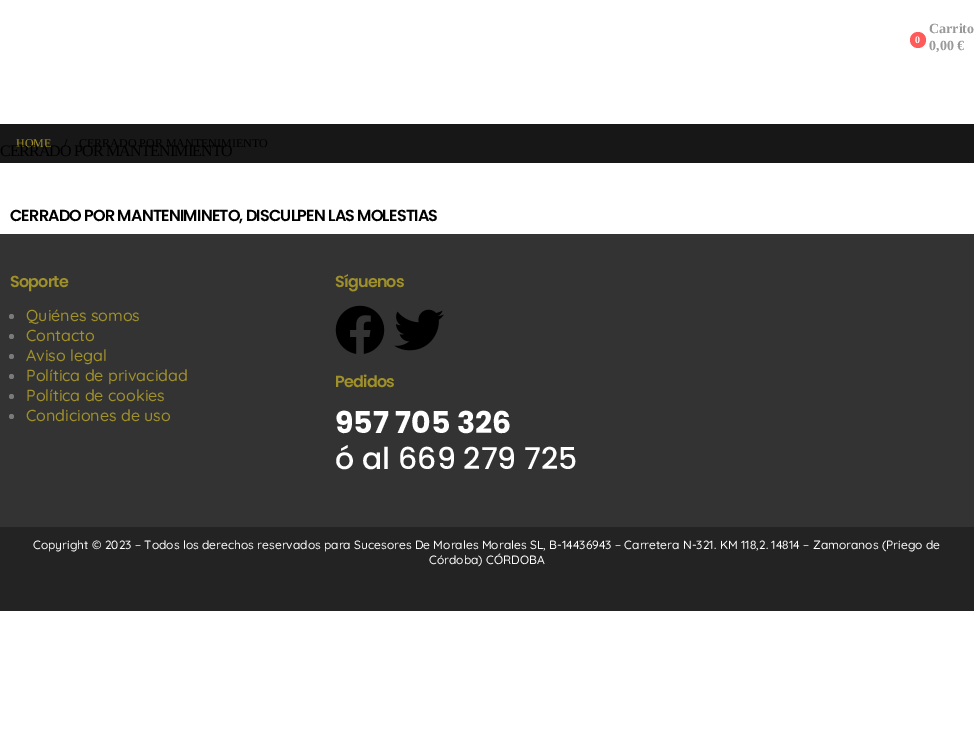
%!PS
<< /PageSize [974 732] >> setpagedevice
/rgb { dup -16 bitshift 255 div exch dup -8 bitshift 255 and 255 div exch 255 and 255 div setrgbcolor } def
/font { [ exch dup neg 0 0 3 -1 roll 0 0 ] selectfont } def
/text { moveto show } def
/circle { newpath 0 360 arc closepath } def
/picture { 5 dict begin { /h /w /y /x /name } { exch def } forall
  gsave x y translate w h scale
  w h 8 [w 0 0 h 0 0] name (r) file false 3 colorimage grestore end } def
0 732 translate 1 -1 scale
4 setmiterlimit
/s1 { /LiberationSerif-Bold 10 font 16#FFFFFF rgb } def
/s2 { /LiberationSerif-Bold 14 font 16#999999 rgb } def
/s3 { /LiberationSerif-Regular 12 font 16#9F902A rgb } def
/s4 { /LiberationSerif-Bold 12 font 16#000000 rgb } def
/s5 { /LiberationSerif-Regular 12 font 16#000000 rgb } def
/s6 { /Quicksand-Medium 16 font 16#9F902A rgb } def
/s7 { /Poppins-Bold 30 font 16#FFFFFF rgb } def
/s8 { /Poppins-Medium 30 font 16#FFFFFF rgb } def
/s9 { /Quicksand-Medium 12 font 16#FFFFFF rgb } def
16#FFFFFF rgb
0 0 974 732 rectfill
16#FF5B5B rgb
918 40 8 circle fill
s1
(0) 915 43 text
s2
(Carrito) 929 33 text
(0,00 €) 929 50 text
16#171717 rgb
0 124 974 39 rectfill
s3
(HOME) 16 147 text
s4
(/) 64 147 text
s5
(CERRADO POR MANTENIMIENTO) 79 147 text
/LiberationSerif-Regular 16 font
0 156 moveto -0.8 0 (CERRADO POR MANTENIMIENTO) ashow
/Poppins-SemiBold 16 font
10 221 moveto -0.8 0 (CERRADO POR MANTENIMINETO, DISCULPEN LAS MOLESTIAS) ashow
16#333333 rgb
0 234 974 293 rectfill
16#9F902A rgb
10 287 moveto -0.8 0 (Soporte) ashow
16#7A7A7A rgb
11.5 316.5 2.5 circle fill
s6
(Quiénes somos) 26 321 text
16#7A7A7A rgb
11.5 336.5 2.5 circle fill
s6
(Contacto) 26 341 text
16#7A7A7A rgb
11.5 356.5 2.5 circle fill
s6
(Aviso legal) 26 361 text
16#7A7A7A rgb
11.5 376.5 2.5 circle fill
s6
(Política de privacidad) 26 381 text
16#7A7A7A rgb
11.5 396.5 2.5 circle fill
s6
(Política de cookies) 26 401 text
16#7A7A7A rgb
11.5 416.5 2.5 circle fill
s6
(Condiciones de uso) 26 421 text
/Poppins-SemiBold 16 font
335 287 moveto -0.8 0 (Síguenos) ashow
(pic1.raw) 335 305 50 49 picture
(pic2.raw) 394 309 50 42 picture
335 387 moveto -0.8 0 (Pedidos) ashow
s7
(957 705 326) 335 433 text
s8
(ó al 669 279 725) 335 469 text
16#232323 rgb
0 527 974 84 rectfill
s9
(Copyright © 2023 – Todos los derechos reservados para Sucesores De Morales Morales SL, B-14436943 – Carretera N-321. KM 118,2. 14814 – Zamoranos \(Priego de) 33 549 text
(Córdoba\) CÓRDOBA) 429 564 text
showpage
